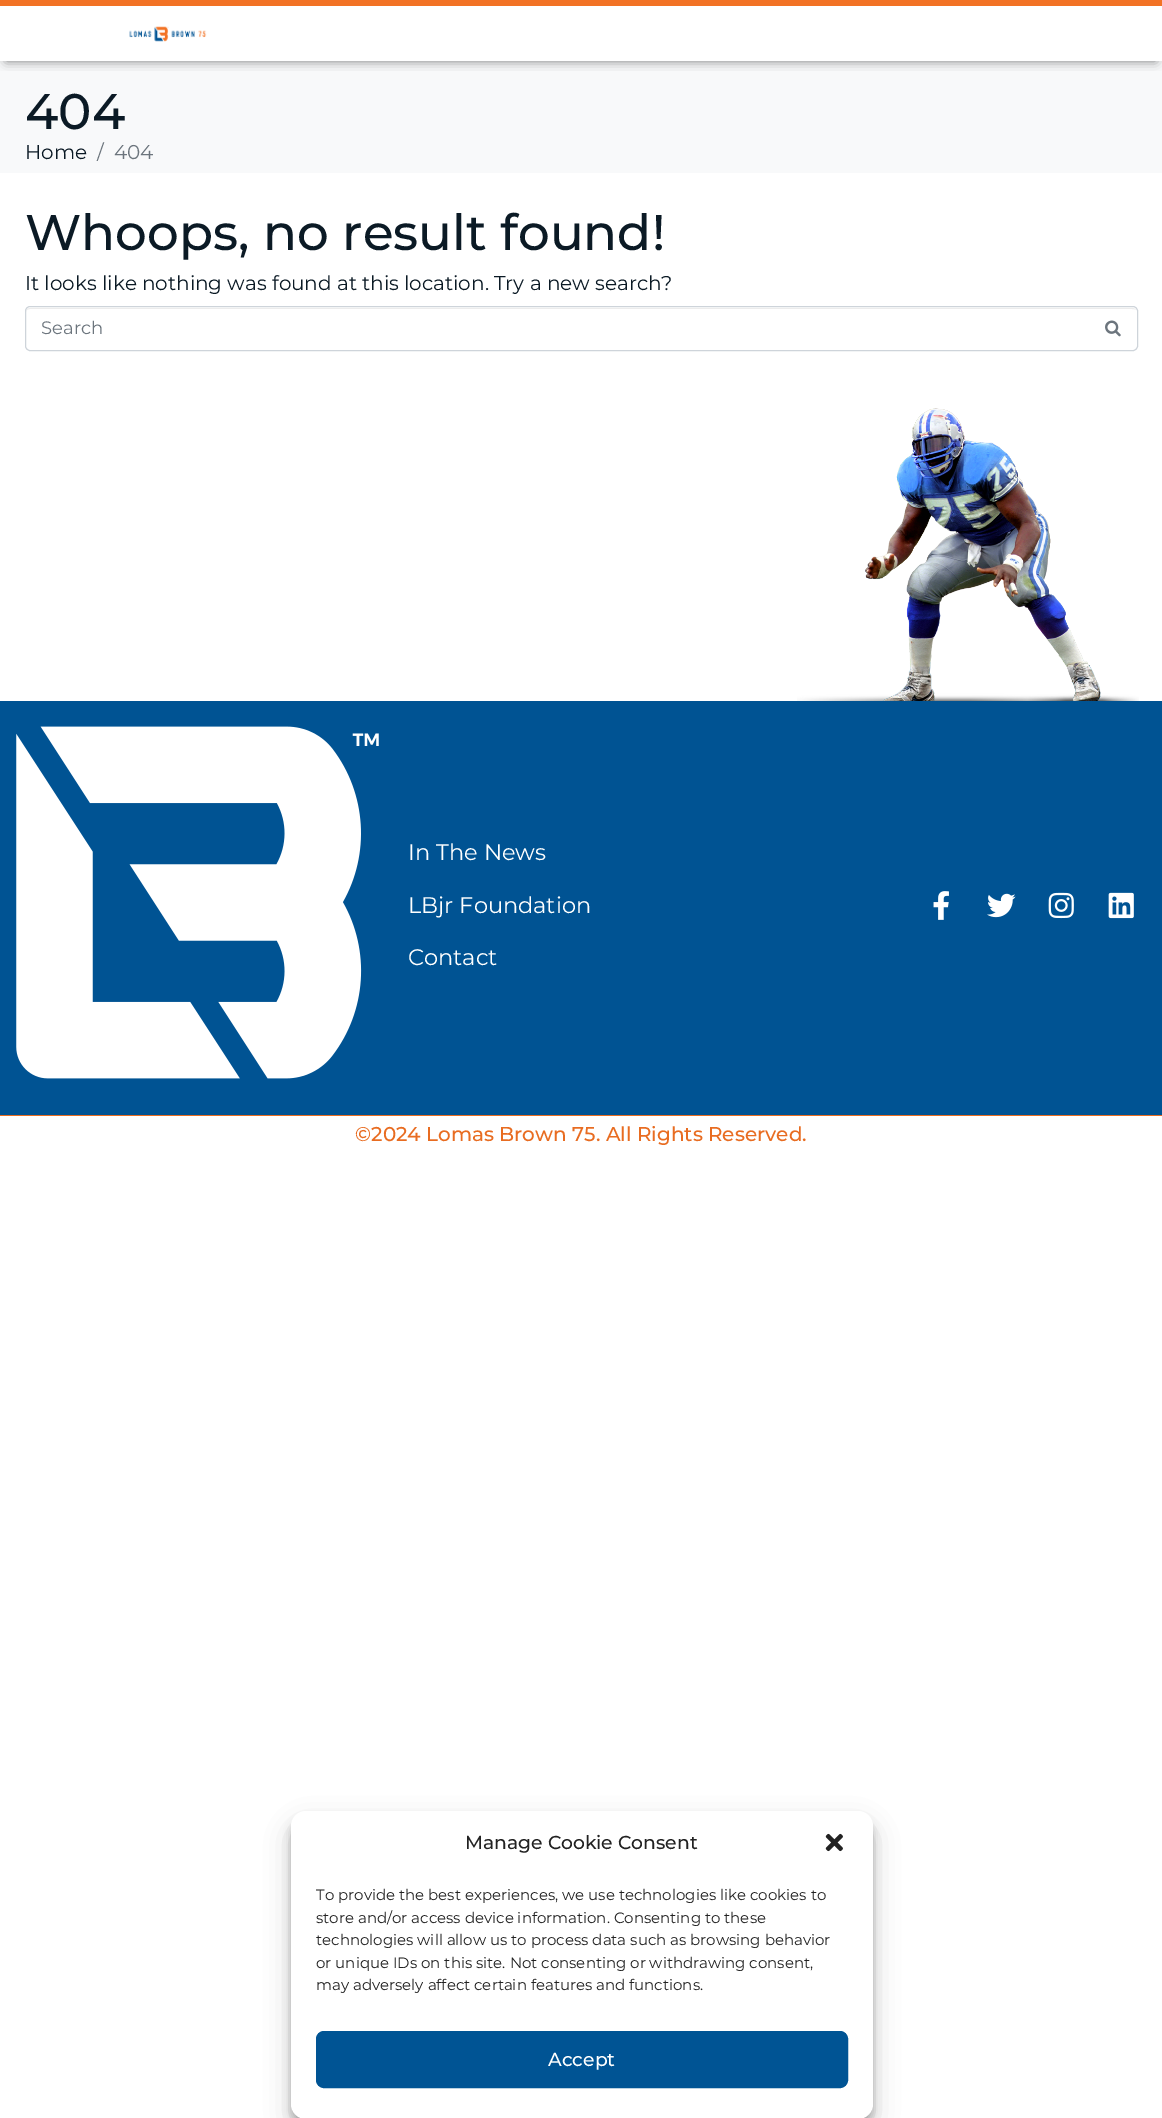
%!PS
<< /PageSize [1162 2118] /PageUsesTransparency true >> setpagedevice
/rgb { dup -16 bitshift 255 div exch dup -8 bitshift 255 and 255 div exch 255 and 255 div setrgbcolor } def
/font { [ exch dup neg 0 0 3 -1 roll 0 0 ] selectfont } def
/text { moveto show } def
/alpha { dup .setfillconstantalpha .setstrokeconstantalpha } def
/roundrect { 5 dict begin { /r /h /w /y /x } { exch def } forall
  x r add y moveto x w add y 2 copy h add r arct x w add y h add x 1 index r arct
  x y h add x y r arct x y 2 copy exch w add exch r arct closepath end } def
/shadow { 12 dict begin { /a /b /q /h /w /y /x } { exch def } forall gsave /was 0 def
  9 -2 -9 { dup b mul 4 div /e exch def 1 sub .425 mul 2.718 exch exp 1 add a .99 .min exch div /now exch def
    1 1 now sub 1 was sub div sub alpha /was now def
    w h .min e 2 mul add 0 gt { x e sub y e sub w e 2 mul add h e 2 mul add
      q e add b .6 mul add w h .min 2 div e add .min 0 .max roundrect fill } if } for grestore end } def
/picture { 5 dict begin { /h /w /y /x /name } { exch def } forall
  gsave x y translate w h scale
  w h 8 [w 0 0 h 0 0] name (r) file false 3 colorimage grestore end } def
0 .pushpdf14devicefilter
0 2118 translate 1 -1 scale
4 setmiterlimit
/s1 { /Montserrat-Medium 50 font 16#0B1A25 rgb } def
/s2 { /Montserrat-Regular 20 font 16#0B1A25 rgb } def
/s3 { /Montserrat-Regular 20 font 16#6C757D rgb } def
/s4 { /Montserrat-Regular 18 font 16#6C757D rgb } def
/s5 { /Montserrat-Regular 22.5 font 16#FFFFFF rgb } def
/s6 { /Montserrat-Medium 20 font 16#E86C21 rgb } def
/s7 { /Montserrat-Medium 18.75 font 16#222222 rgb } def
/s8 { /Montserrat-Regular 15 font 16#222222 rgb } def
/s9 { /Montserrat-Medium 18.75 font 16#FFFFFF rgb } def
16#FFFFFF rgb
0 0 1162 2118 rectfill
16#F8F9FA rgb
0 61 1162 112 rectfill
gsave
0 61 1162 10 rectclip
16#000000 rgb
6 13 1150 48 0 5.5 0.5 shadow
grestore
16#F27225 rgb
0 0 1162 6 rectfill
(pic1.raw) 129 26 78 16 picture
s1
(404) 25 129 text
s2
(Home) 25 159 text
s3
(/) 97 159 text
(404) 114 159 text
s1
(Whoops, no result found!) 25 250 text
s2
(It looks like nothing was found at this location. Try a new search?) 25 290 text
16#ECECEC rgb
30 309 moveto 1132 309 lineto 1134 309 1135 309 1136 310 curveto 1135 309 1134 308 1132 308 curveto 30 308 lineto 28 308 26 310 26 312 curveto 26 310 28 309 30 309 curveto closepath fill
16#CED4DA rgb
25.5 306.5 1112 44 4.5 roundrect stroke
s4
(Search) 41 334 text
(pic2.raw) 1105 320 16 17 picture
(pic3.raw) 797 408 342 293 picture
16#005393 rgb
0 701 1162 414 rectfill
(pic4.raw) 16 726 363 353 picture
s5
(In The News) 408 860 text
(LBjr Foundation) 408 913 text
(Contact) 408 965 text
(pic5.raw) 933 891 16 29 picture
(pic6.raw) 987 893 29 25 picture
(pic7.raw) 1048 892 26 27 picture
(pic8.raw) 1108 892 26 27 picture
16#E86C21 rgb
0 1115 1162 1 rectfill
s6
(©2024 Lomas Brown 75. All Rights Reserved.) 355 1141 text
16#000000 rgb
291 1819 582 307 15 4 0.23 shadow
291 1824 582 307 15 12.5 0.19 shadow
16#FFFFFF rgb
291 1811 582 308 15 roundrect fill
s7
(Manage Cookie Consent) 465 1849 text
(pic9.raw) 825 1833 18 19 picture
s8
(To provide the best experiences, we use technologies like cookies to) 316 1900 text
(store and/or access device information. Consenting to these) 316 1923 text
(technologies will allow us to process data such as browsing behavior) 316 1945 text
(or unique IDs on this site. Not consenting or withdrawing consent,) 316 1968 text
(may adversely affect certain features and functions.) 316 1990 text
16#005494 rgb
316.5 2031.5 531 56 7.5 roundrect gsave fill grestore
stroke
s9
(Accept) 548 2066 text
.poppdf14devicefilter showpage
